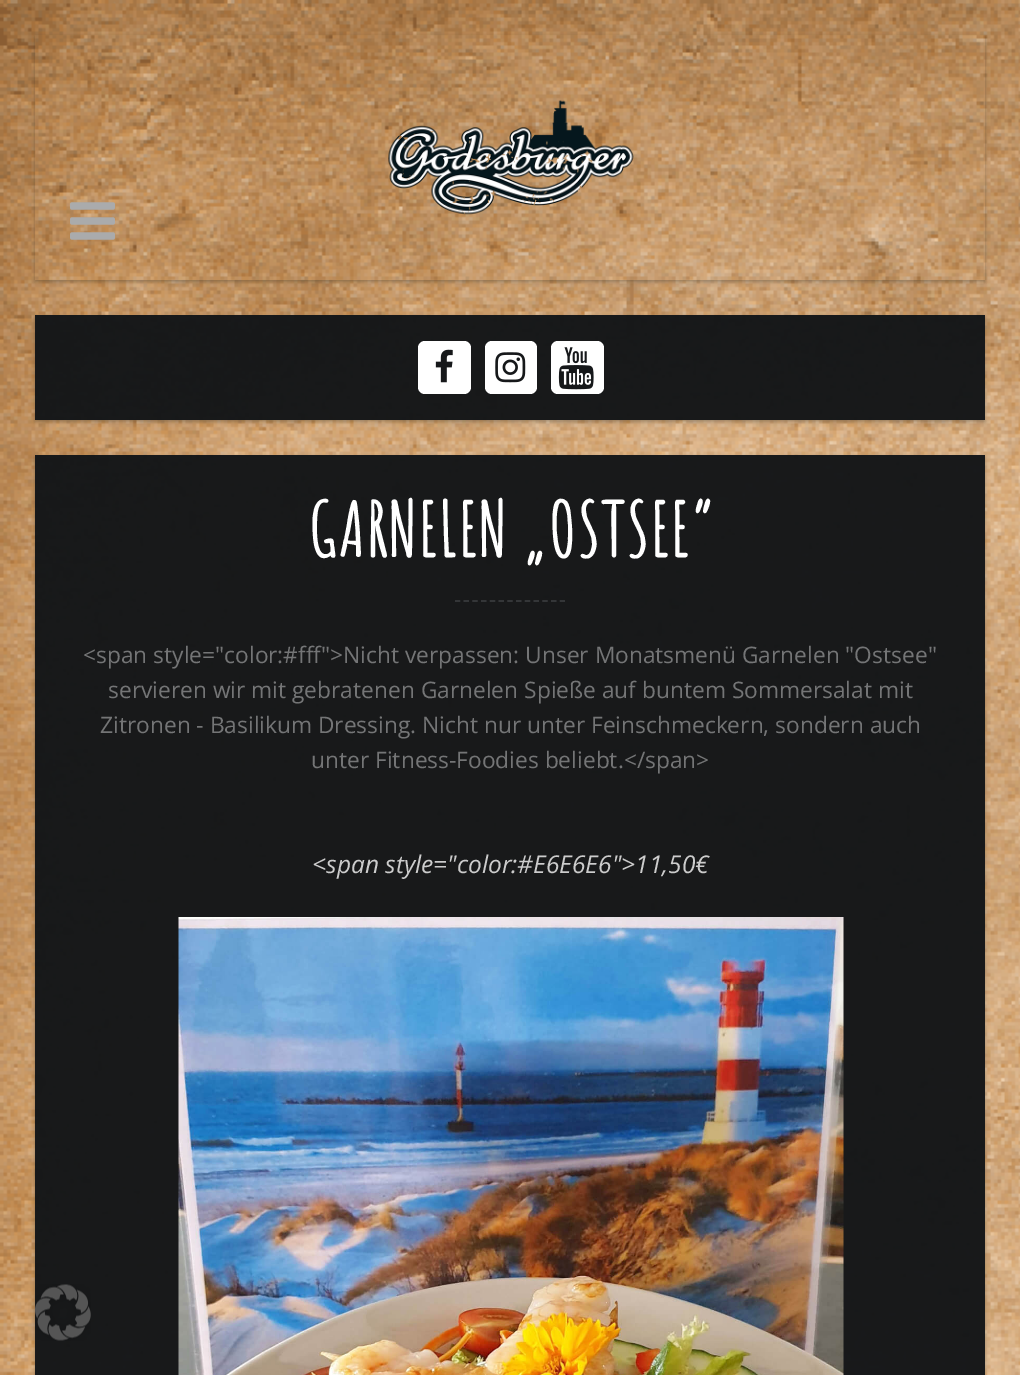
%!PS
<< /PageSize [1020 1375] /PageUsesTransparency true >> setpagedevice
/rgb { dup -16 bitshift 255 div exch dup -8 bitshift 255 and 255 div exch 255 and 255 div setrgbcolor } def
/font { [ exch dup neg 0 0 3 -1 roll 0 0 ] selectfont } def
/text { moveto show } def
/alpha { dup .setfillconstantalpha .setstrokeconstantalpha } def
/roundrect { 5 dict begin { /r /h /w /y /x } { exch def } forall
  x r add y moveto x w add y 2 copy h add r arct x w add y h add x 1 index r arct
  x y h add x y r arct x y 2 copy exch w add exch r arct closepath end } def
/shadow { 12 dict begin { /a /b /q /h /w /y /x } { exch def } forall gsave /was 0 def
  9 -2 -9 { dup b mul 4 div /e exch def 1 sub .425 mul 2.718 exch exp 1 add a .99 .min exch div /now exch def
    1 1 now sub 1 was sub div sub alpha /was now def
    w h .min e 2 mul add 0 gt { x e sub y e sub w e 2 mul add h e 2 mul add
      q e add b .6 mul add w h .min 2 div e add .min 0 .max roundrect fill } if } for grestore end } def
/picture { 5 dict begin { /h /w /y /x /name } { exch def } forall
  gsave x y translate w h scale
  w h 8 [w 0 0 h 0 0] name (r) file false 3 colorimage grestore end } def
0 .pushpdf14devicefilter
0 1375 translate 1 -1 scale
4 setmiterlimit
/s1 { /OpenSans-Regular 22.75 font 16#747576 rgb } def
/s2 { /OpenSans-Italic 24.5 font 16#CCCCCC rgb } def
16#FFFFFF rgb
0 0 1020 1375 rectfill
(pic1.raw) 0 0 1020 1375 picture
gsave
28 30 moveto 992 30 lineto 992 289 lineto 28 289 lineto closepath 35 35 moveto 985 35 lineto 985 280 lineto 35 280 lineto closepath eoclip newpath
16#0A1414 rgb
35 37 950 245 0 2 0.28 shadow
grestore
(pic2.raw) 388 100 246 115 picture
(pic3.raw) 70 202 45 38 picture
gsave
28 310 moveto 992 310 lineto 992 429 lineto 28 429 lineto closepath 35 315 moveto 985 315 lineto 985 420 lineto 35 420 lineto closepath eoclip newpath
16#0A1414 rgb
35 317 950 105 0 2 0.28 shadow
grestore
0.98 alpha
16#141618 rgb
35 315 950 105 rectfill
1 alpha
16#FFFFFF rgb
418 341 53 53 7 roundrect fill
(pic4.raw) 435 349 18 34 picture
485 341 52 53 7 roundrect fill
(pic5.raw) 495 352 31 31 picture
551 341 53 53 7 roundrect fill
(pic6.raw) 558 347 36 43 picture
gsave
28 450 moveto 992 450 lineto 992 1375 lineto 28 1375 lineto closepath 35 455 moveto 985 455 lineto 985 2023 lineto 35 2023 lineto closepath eoclip newpath
16#0A1414 rgb
35 457 950 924 0 2 0.28 shadow
grestore
0.98 alpha
16#141618 rgb
35 455 950 920 rectfill
/AmaticSC-Bold 73.5 font
1 alpha
16#FFFFFF rgb
308 557 moveto 1.75 0 (GARNELEN „OSTSEE“) ashow
16#343638 rgb
1.8 setlinewidth
[5.25 3.5] 0 setdash
455 601 moveto 565 601 lineto stroke
s1
(<span style="color:#fff">Nicht verpassen: Unser Monatsmenü Garnelen "Ostsee") 83 663 text
(servieren wir mit gebratenen Garnelen Spieße auf buntem Sommersalat mit) 108 698 text
(Zitronen - Basilikum Dressing. Nicht nur unter Feinschmeckern, sondern auch) 100 733 text
(unter Fitness-Foodies beliebt.</span>) 311 768 text
s2
(<span style="color:#E6E6E6">11,50€) 312 873 text
(pic7.raw) 178 917 666 458 picture
(pic8.raw) 28 1284 63 57 picture
.poppdf14devicefilter showpage
